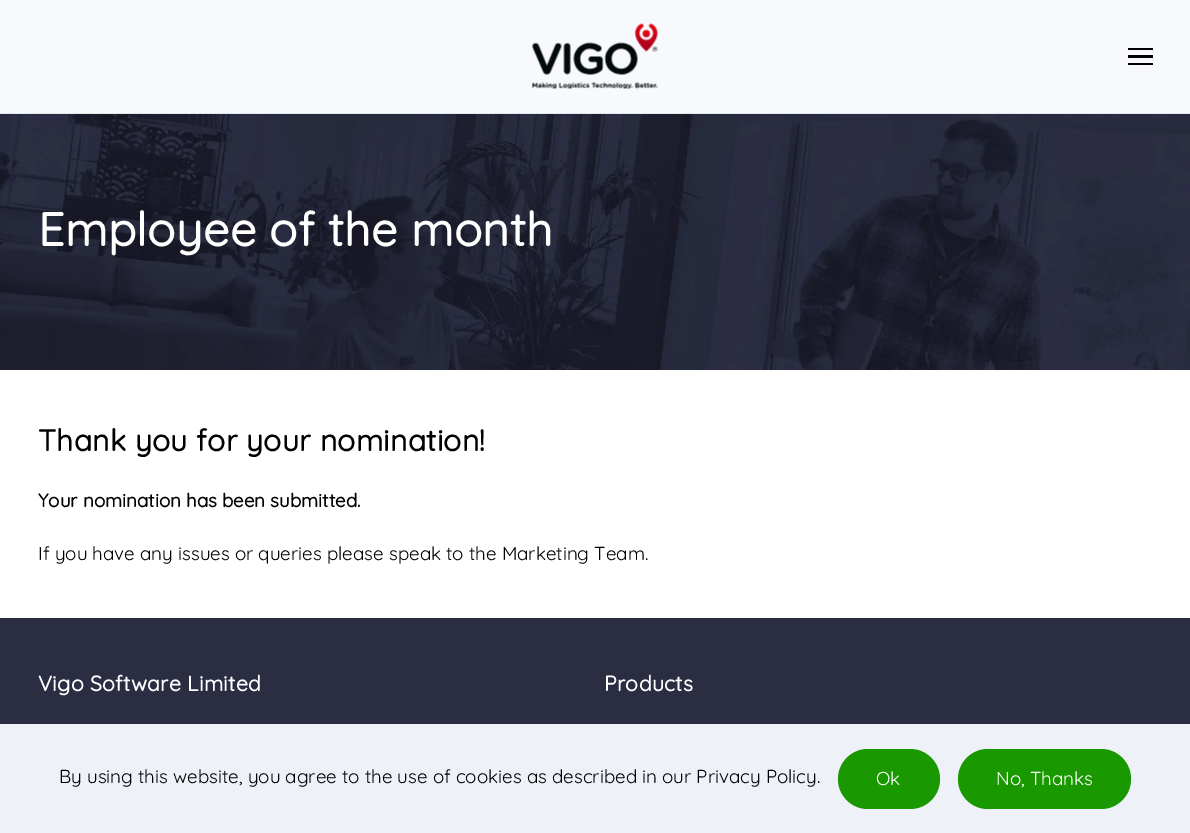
%!PS
<< /PageSize [1190 833] /PageUsesTransparency true >> setpagedevice
/rgb { dup -16 bitshift 255 div exch dup -8 bitshift 255 and 255 div exch 255 and 255 div setrgbcolor } def
/font { [ exch dup neg 0 0 3 -1 roll 0 0 ] selectfont } def
/text { moveto show } def
/alpha { dup .setfillconstantalpha .setstrokeconstantalpha } def
/roundrect { 5 dict begin { /r /h /w /y /x } { exch def } forall
  x r add y moveto x w add y 2 copy h add r arct x w add y h add x 1 index r arct
  x y h add x y r arct x y 2 copy exch w add exch r arct closepath end } def
/picture { 5 dict begin { /h /w /y /x /name } { exch def } forall
  gsave x y translate w h scale
  w h 8 [w 0 0 h 0 0] name (r) file false 3 colorimage grestore end } def
0 .pushpdf14devicefilter
0 833 translate 1 -1 scale
4 setmiterlimit
/s1 { /Quicksand-Bold 18.75 font 16#000000 rgb } def
/s2 { /Quicksand-Light 18.75 font 16#000000 rgb } def
/s3 { /Quicksand-Light 18.75 font 16#FFFFFF rgb } def
16#FFFFFF rgb
0 0 1190 833 rectfill
0.9 alpha
16#F7F8FC rgb
0 0 1190 113 rectfill
1 alpha
16#E5E9ED rgb
0 113 1190 1 rectfill
(pic1.raw) 532 23 126 66 picture
16#000000 rgb
1128 48 25 2 rectfill
1128 55 25 3 rectfill
1128 63 25 2 rectfill
(pic2.raw) 0 114 1190 256 picture
/Quicksand-Bold 46.75 font
16#FFFFFF rgb
38 246 moveto 0.3 0 (Employee of the month) ashow
/Quicksand-Bold 30 font
16#000000 rgb
38 451 moveto 0.3 0 (Thank you for your nomination!) ashow
s1
(Your nomination has been submitted.) 38 507 text
s2
(If you have any issues or queries please speak to the Marketing Team.) 38 560 text
16#2B2D42 rgb
0 618 1190 106 rectfill
/Quicksand-Bold 21.25 font
16#FFFFFF rgb
38 691 moveto 0.3 0 (Vigo Software Limited) ashow
604 691 moveto 0.3 0 (Products) ashow
16#EFF1F9 rgb
0 724 1190 109 rectfill
s2
(By using this website, you agree to the use of cookies as described in our Privacy Policy.) 59 783 text
16#199800 rgb
838 749 102 60 30 roundrect fill
s3
(Ok) 876 785 text
16#199800 rgb
958 749 173 60 30 roundrect fill
s3
(No, Thanks) 996 785 text
.poppdf14devicefilter showpage
